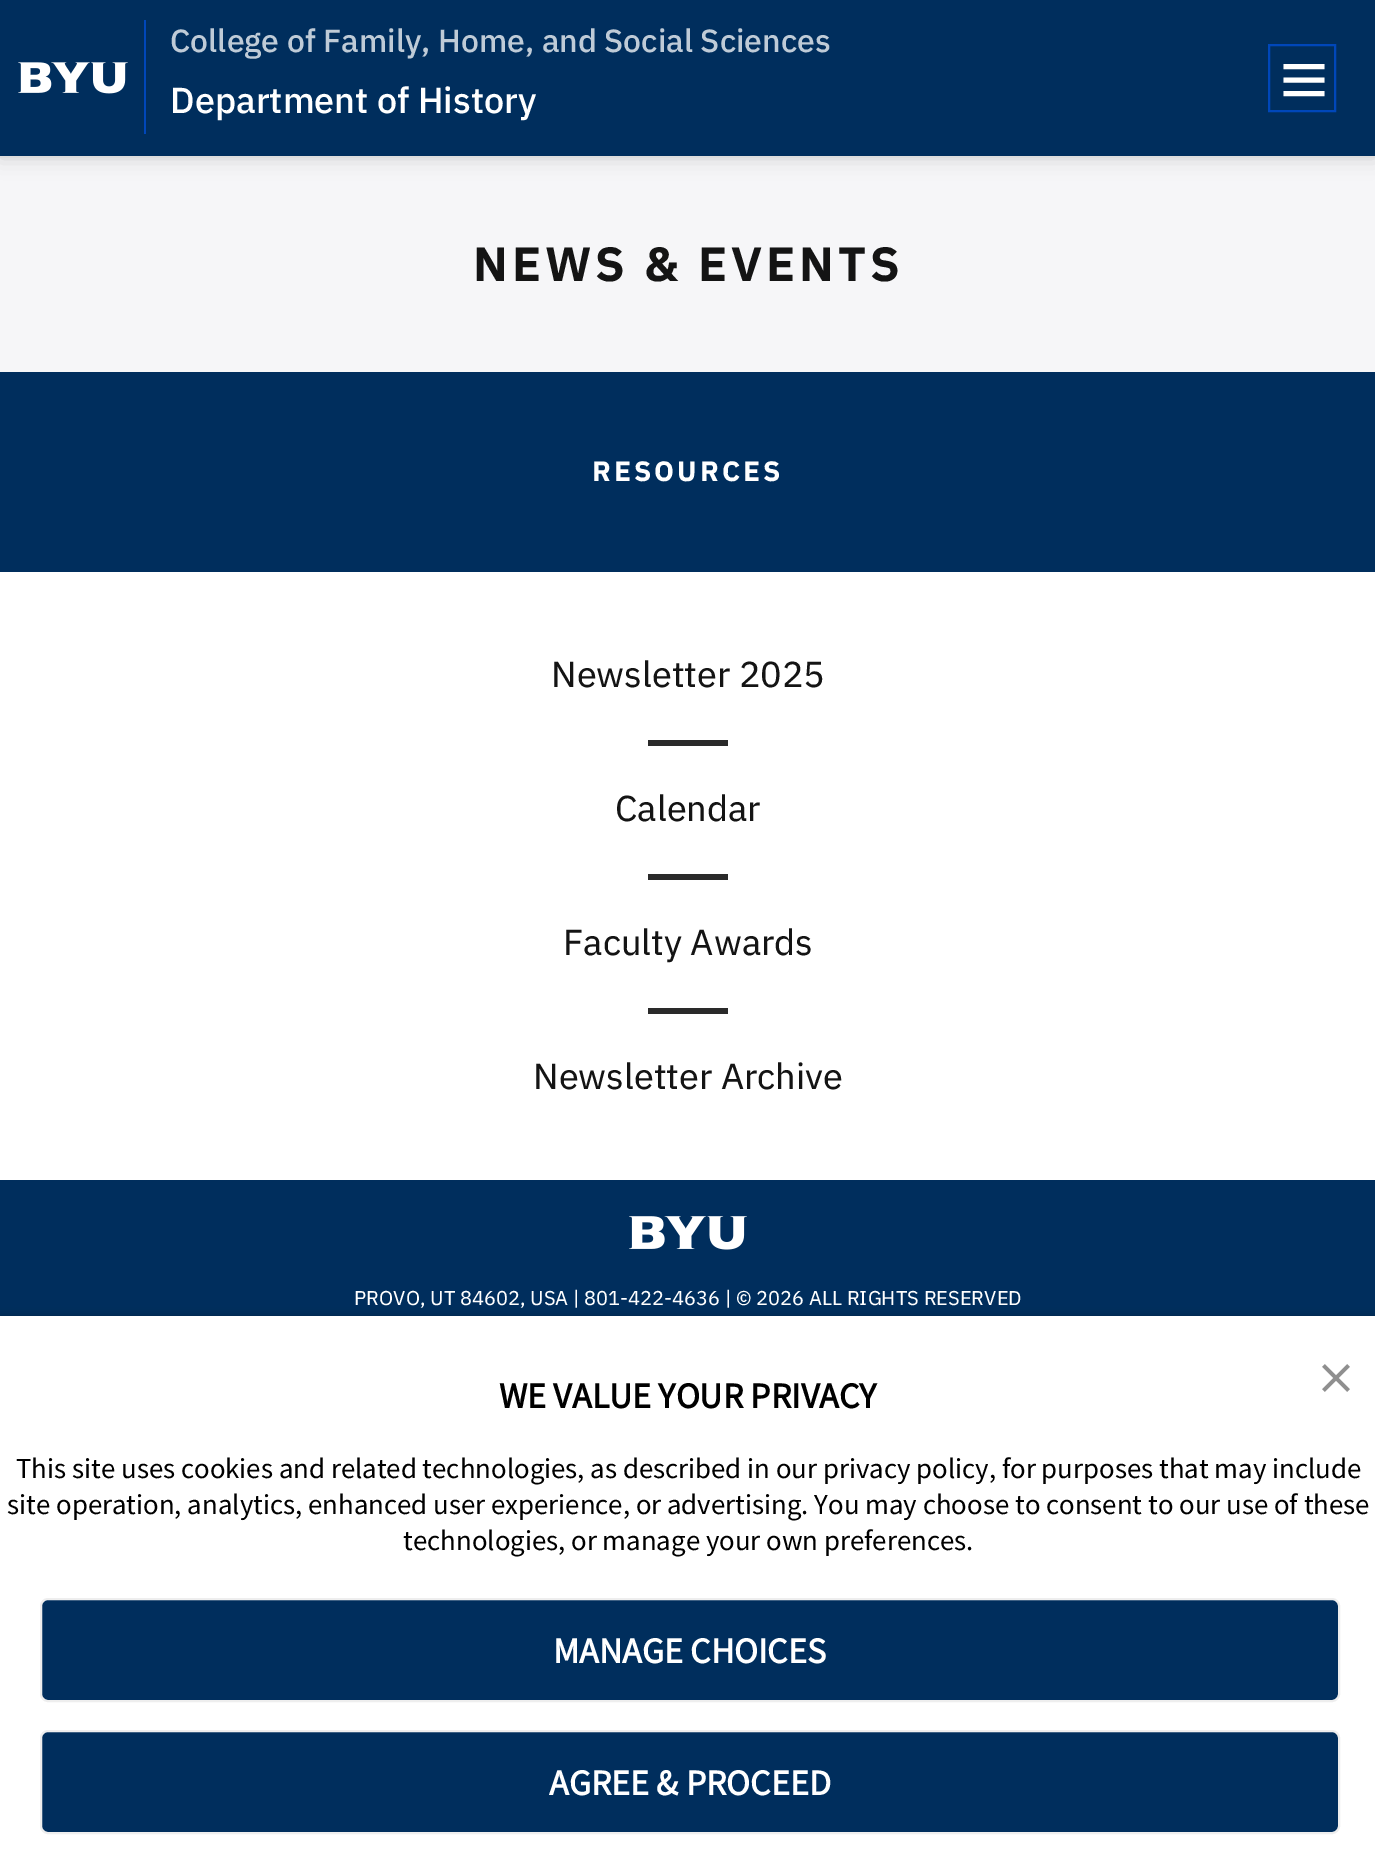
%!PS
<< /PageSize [1375 1851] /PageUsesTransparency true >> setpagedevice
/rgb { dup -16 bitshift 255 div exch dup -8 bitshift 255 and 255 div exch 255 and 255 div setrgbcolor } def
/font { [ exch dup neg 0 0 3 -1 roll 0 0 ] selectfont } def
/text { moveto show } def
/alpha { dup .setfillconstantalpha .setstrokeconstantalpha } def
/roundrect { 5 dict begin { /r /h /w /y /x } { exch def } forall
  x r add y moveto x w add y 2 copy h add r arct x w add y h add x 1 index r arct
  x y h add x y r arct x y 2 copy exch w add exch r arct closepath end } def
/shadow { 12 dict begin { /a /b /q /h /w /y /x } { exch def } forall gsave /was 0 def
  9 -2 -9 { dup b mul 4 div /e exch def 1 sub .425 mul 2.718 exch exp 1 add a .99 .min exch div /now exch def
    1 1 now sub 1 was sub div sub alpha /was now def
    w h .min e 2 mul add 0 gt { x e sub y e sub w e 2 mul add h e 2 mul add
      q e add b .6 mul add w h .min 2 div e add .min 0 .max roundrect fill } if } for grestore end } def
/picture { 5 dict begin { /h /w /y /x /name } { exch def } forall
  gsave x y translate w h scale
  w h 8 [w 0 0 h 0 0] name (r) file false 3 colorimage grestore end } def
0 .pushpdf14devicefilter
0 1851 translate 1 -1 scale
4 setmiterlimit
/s1 { /IBMPlexSans-Medium 32 font 16#BFCBD7 rgb } def
/s2 { /IBMPlexSans-Medium 36 font 16#FFFFFF rgb } def
/s3 { /IBMPlexSans-Regular 36 font 16#141414 rgb } def
/s4 { /IBMPlexSans-Regular 20 font 16#FFFFFF rgb } def
/s5 { /SourceSansPro-Bold 36 font 16#000000 rgb } def
/s6 { /SourceSansPro-Regular 28.8 font 16#000000 rgb } def
/s7 { /SourceSansPro-Bold 36 font 16#FFFFFF rgb } def
16#FFFFFF rgb
0 0 1375 1851 rectfill
16#F6F6F8 rgb
0 158 1375 214 rectfill
16#000000 rgb
0 0 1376 158 0 10 0.16 shadow
16#DDDDDD rgb
0 156 1375 2 rectfill
16#002E5D rgb
0 0 1375 156 rectfill
(pic1.raw) 18 62 110 32 picture
s1
(College of Family, Home, and Social Sciences) 170 52 text
16#0047BA rgb
2 setlinewidth
1269 45 66 66 rectstroke
16#FFFFFF rgb
5.1 setlinewidth
1283.5 66.5 moveto 1324.5 66.5 lineto 1283.5 80 moveto 1324.5 80 lineto 1283.5 93.5 moveto 1324.5 93.5 lineto stroke
16#0047BA rgb
144 20 2 114 rectfill
s2
(Department of History) 170 113 text
/IBMPlexSans-Bold 48 font
16#141414 rgb
473 281 moveto 4 0 (NEWS & EVENTS) ashow
16#002E5D rgb
0 372 1375 200 rectfill
/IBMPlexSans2-Bold 28 font
16#FFFFFF rgb
592 481 moveto 3 0 (RESOURCES) ashow
s3
(Newsletter 2025) 551 687 text
16#2A2A2A rgb
648 740 80 6 rectfill
s3
(Calendar) 615 821 text
16#2A2A2A rgb
648 874 80 6 rectfill
s3
(Faculty Awards) 563 955 text
16#2A2A2A rgb
648 1008 80 6 rectfill
s3
(Newsletter Archive) 533 1089 text
16#002E5D rgb
0 1180 1375 136 rectfill
(pic2.raw) 629 1216 118 34 picture
s4
(PROVO, UT 84602, USA | 801-422-4636 | © 2026 ALL RIGHTS RESERVED) 354 1305 text
16#000000 rgb
0 1316 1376 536 0 4 0.2 shadow
16#FFFFFF rgb
0 1316 1375 535 rectfill
(pic3.raw) 1322 1364 28 28 picture
s5
(WE VALUE YOUR PRIVACY) 499 1408 text
s6
(This site uses cookies and related technologies, as described in our privacy policy, for purposes that may include) 16 1478 text
(site operation, analytics, enhanced user experience, or advertising. You may choose to consent to our use of these) 7 1514 text
(technologies, or manage your own preferences.) 403 1550 text
16#002E5D rgb
41 1599 1298 102 7 roundrect gsave fill grestore
16#EEEEEE rgb
2 setlinewidth
stroke
s7
(MANAGE CHOICES) 553 1663 text
16#002E5D rgb
41 1731 1298 102 7 roundrect gsave fill grestore
16#EEEEEE rgb
stroke
s7
(AGREE & PROCEED) 549 1795 text
.poppdf14devicefilter showpage
